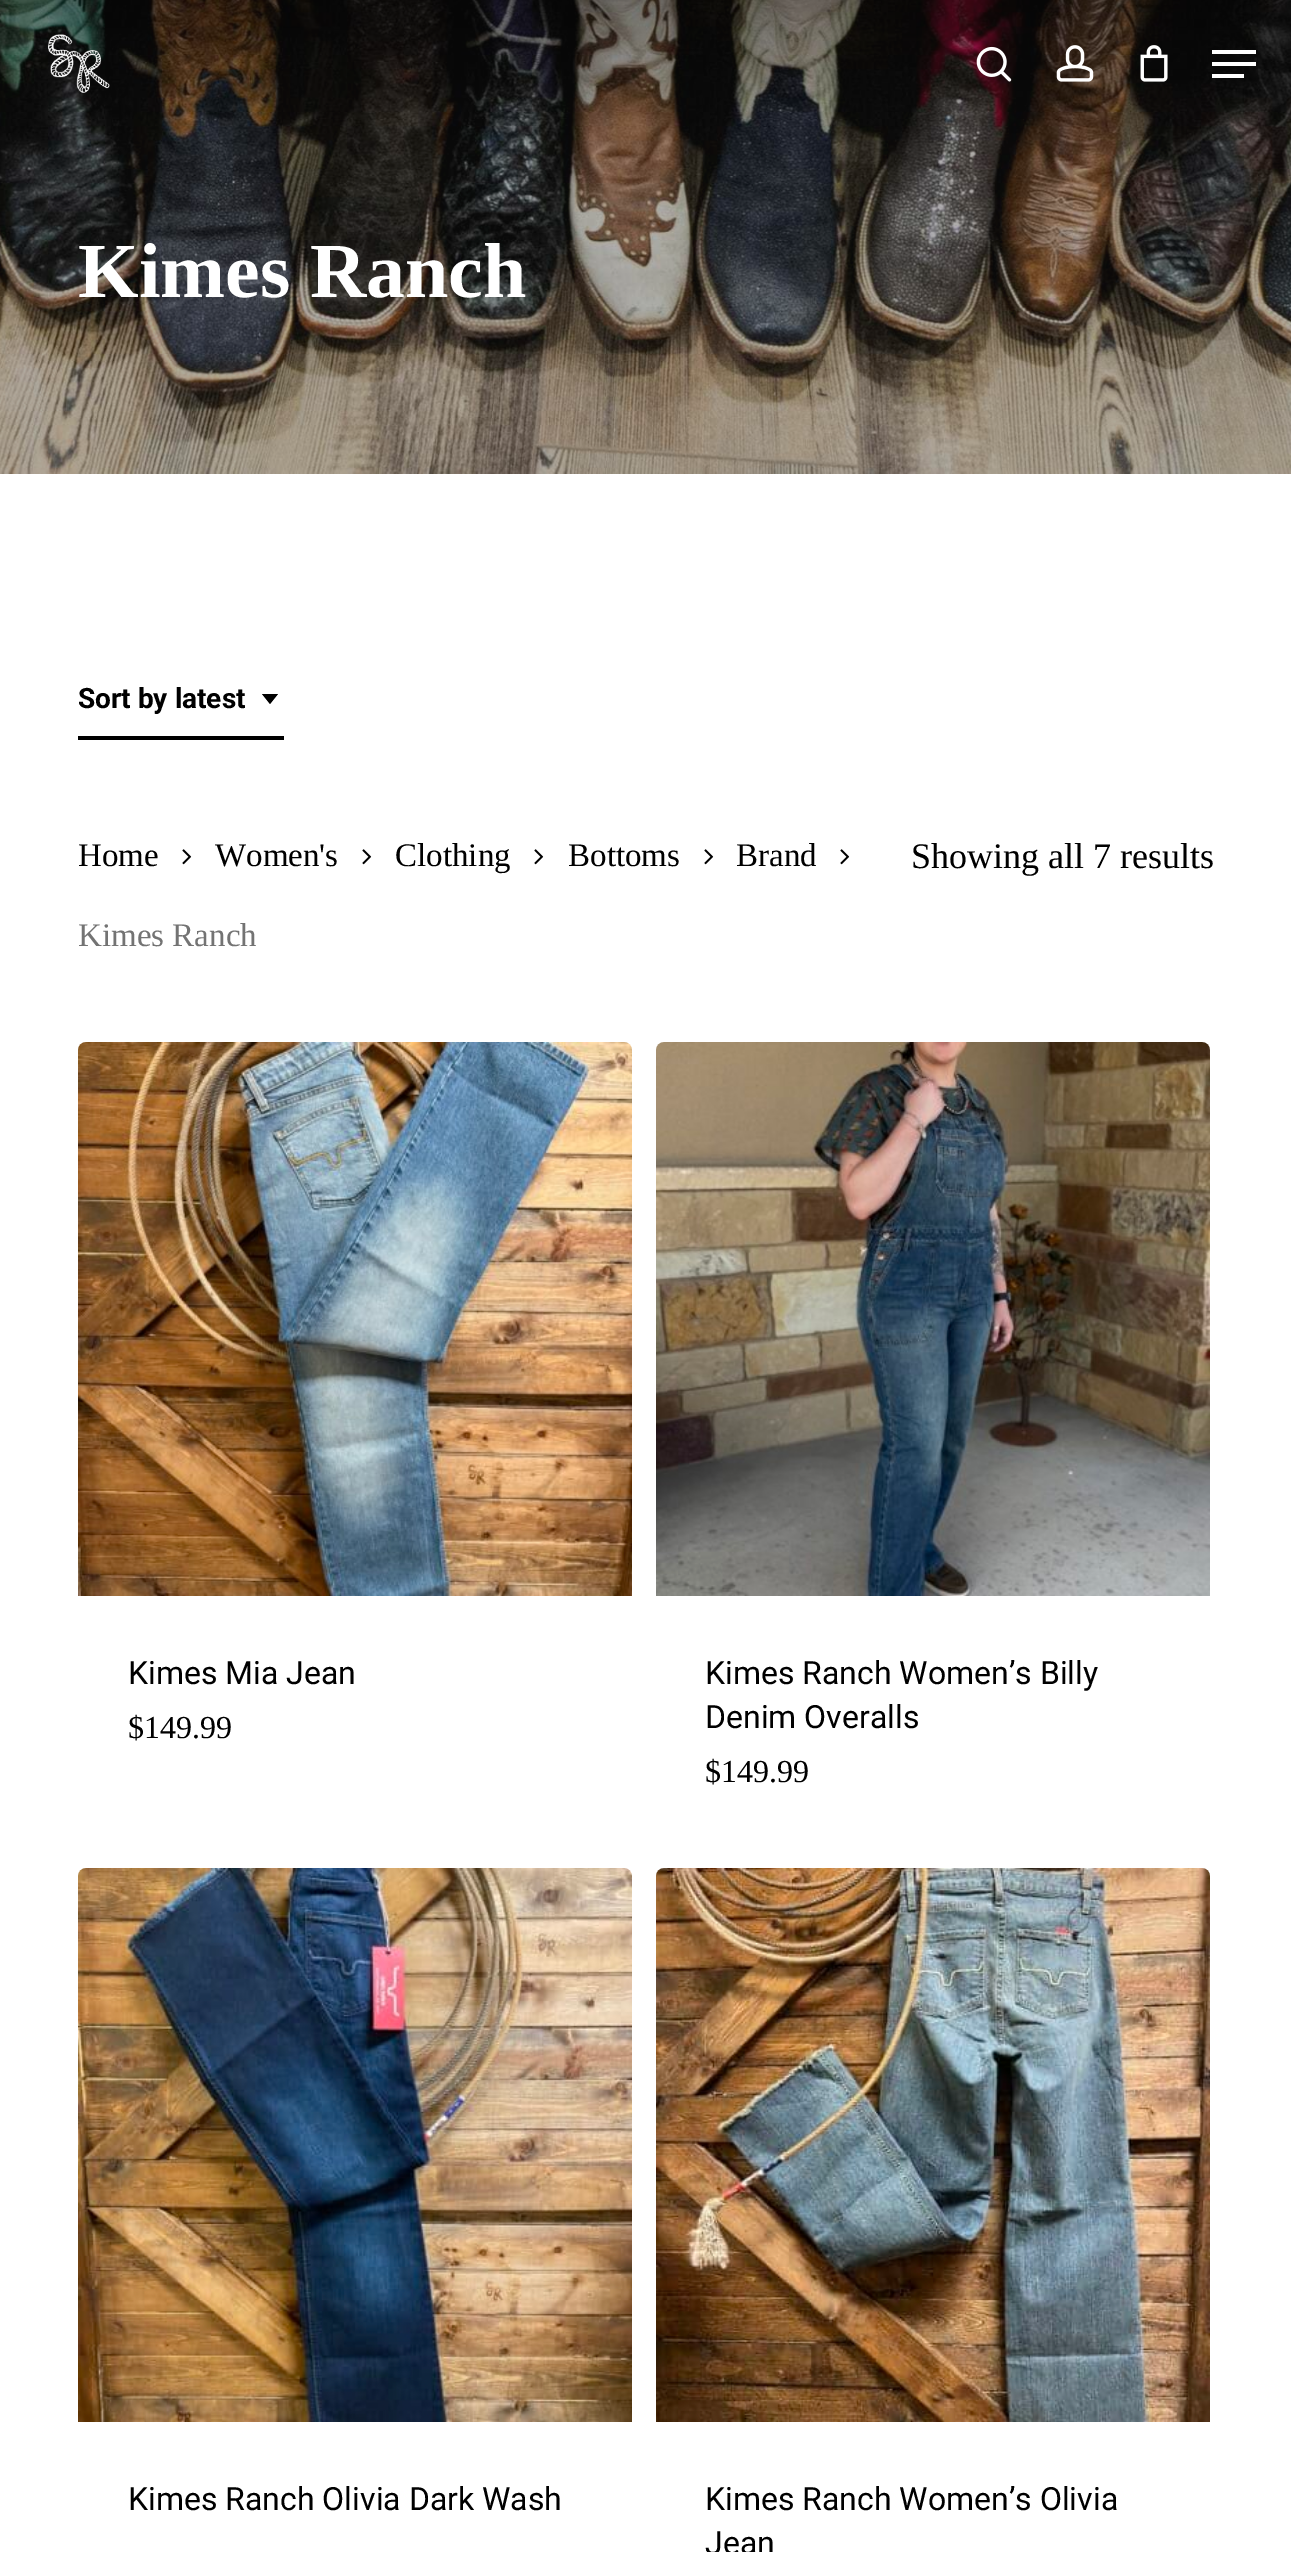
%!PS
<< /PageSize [1291 2552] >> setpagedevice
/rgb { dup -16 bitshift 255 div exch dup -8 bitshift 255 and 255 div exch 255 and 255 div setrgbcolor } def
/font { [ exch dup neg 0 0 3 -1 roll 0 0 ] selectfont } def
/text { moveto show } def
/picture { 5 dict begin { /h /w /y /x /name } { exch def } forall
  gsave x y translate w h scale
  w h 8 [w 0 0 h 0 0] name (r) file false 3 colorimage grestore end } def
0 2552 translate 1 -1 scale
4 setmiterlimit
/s1 { /LiberationSerif-Bold 78 font 16#FFFFFF rgb } def
/s2 { /Roboto-Bold 28 font 16#000000 rgb } def
/s3 { /LiberationSerif-Regular 33 font 16#000000 rgb } def
/s4 { /LiberationSerif-Regular 33 font 16#737373 rgb } def
/s5 { /LiberationSerif-Regular 36 font 16#000000 rgb } def
/s6 { /Roboto-Regular 32 font 16#000000 rgb } def
/s7 { /LiberationSerif-Regular 32 font 16#000000 rgb } def
16#FFFFFF rgb
0 0 1291 2552 rectfill
(pic5.raw) 0 0 1291 474 picture
(pic1.raw) 48 34 62 59 picture
(pic2.raw) 976 46 36 36 picture
(pic3.raw) 1056 45 38 37 picture
(pic4.raw) 1140 45 28 37 picture
1212 50 44 4 rectfill
1212 74 32 4 rectfill
1212 62 44 4 rectfill
s1
(Kimes Ranch) 78 297 text
16#000000 rgb
78 736 206 4 rectfill
s2
(Sort by latest) 78 708 text
262 694 moveto 278 694 lineto 270 704 lineto closepath fill
s3
(Home) 78 866 text
(pic6.raw) 182 849 10 16 picture
(Women's) 215 866 text
(pic6.raw) 362 849 10 16 picture
(Clothing) 395 866 text
(pic6.raw) 534 849 10 16 picture
(Bottoms) 568 866 text
(pic6.raw) 704 849 10 16 picture
(Brand) 736 866 text
(pic6.raw) 840 849 10 16 picture
s4
(Kimes Ranch) 78 946 text
s5
(Showing all 7 results) 911 868 text
(pic7.raw) 78 1042 554 554 picture
s6
(Kimes Mia Jean) 128 1684 text
s7
($149.99) 128 1738 text
(pic8.raw) 656 1042 554 554 picture
s6
(Kimes Ranch Women’s Billy) 705 1684 text
(Denim Overalls) 705 1728 text
s7
($149.99) 705 1782 text
(pic9.raw) 78 1868 554 554 picture
s6
(Kimes Ranch Olivia Dark Wash) 128 2510 text
(pic10.raw) 656 1868 554 554 picture
(Kimes Ranch Women’s Olivia) 705 2510 text
(Jean) 705 2554 text
showpage
